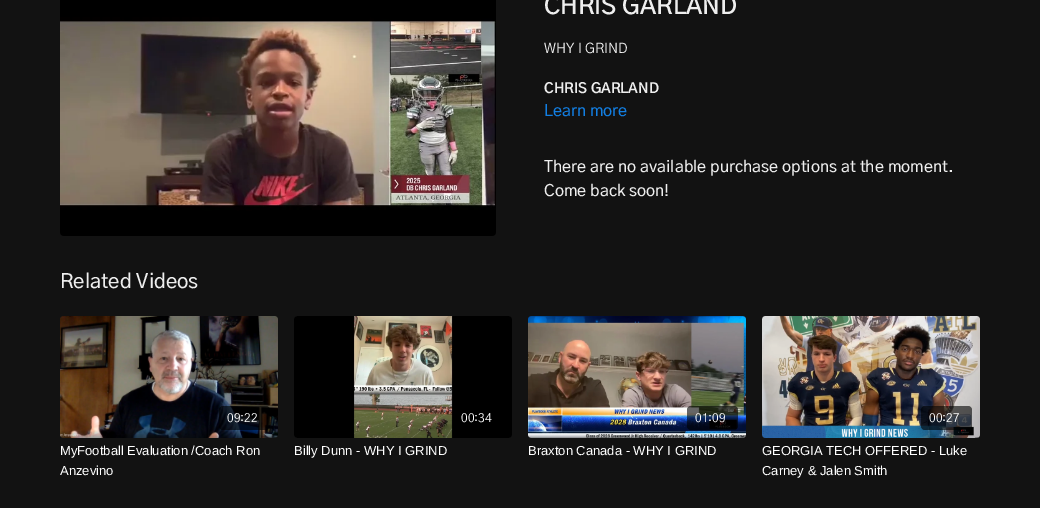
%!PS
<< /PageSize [1040 508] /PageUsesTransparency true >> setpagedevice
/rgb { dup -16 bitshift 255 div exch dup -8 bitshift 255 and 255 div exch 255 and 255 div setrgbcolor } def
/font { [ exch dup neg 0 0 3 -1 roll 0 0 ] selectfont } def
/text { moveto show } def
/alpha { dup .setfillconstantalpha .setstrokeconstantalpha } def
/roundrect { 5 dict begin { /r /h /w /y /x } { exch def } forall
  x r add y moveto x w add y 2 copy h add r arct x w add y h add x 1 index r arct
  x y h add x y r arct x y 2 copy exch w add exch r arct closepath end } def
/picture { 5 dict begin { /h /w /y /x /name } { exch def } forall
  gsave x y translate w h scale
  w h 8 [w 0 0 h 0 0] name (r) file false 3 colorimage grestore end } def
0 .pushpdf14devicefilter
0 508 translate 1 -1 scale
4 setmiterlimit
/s1 { /GothicA1-SemiBold 24 font 16#EEEEEE rgb } def
/s2 { /GothicA1-Regular 14 font 16#EEEEEE rgb } def
/s3 { /GothicA1-Bold 14 font 16#EEEEEE rgb } def
/s4 { /GothicA1-Medium 16 font 16#127EE2 rgb } def
/s5 { /GothicA1-Medium 16 font 16#EEEEEE rgb } def
/s6 { /GothicA1-Medium 20 font 16#EEEEEE rgb } def
/s7 { /GothicA1-Regular 12 font 16#FFFFFF rgb } def
/s8 { /LiberationSans-Regular 13 font 16#FFFFFF rgb } def
16#121212 rgb
0 0 1040 508 rectfill
(pic1.raw) 60 0 436 236 picture
s1
(CHRIS GARLAND) 544 14 text
s2
(WHY I GRIND) 544 53 text
s3
(CHRIS GARLAND) 544 93 text
s4
(Learn more) 544 116 text
s5
(There are no available purchase options at the moment.) 544 172 text
(Come back soon!) 544 196 text
s6
(Related Videos) 60 288 text
(pic2.raw) 60 316 218 122 picture
0.6 alpha
16#000000 rgb
219 406 51 24 4 roundrect fill
1 alpha
s7
(09:22) 227 422 text
s8
(MyFootball Evaluation /Coach Ron) 60 455 text
(Anzevino) 60 475 text
(pic3.raw) 294 316 218 122 picture
s7
(00:34) 461 422 text
s8
(Billy Dunn - WHY I GRIND) 294 455 text
(pic4.raw) 528 316 218 122 picture
0.6 alpha
16#000000 rgb
687 406 51 24 4 roundrect fill
1 alpha
s7
(01:09) 695 422 text
s8
(Braxton Canada - WHY I GRIND) 528 455 text
(pic5.raw) 762 316 218 122 picture
0.6 alpha
16#000000 rgb
921 406 51 24 4 roundrect fill
1 alpha
s7
(00:27) 929 422 text
s8
(GEORGIA TECH OFFERED - Luke) 762 455 text
(Carney & Jalen Smith) 762 475 text
.poppdf14devicefilter showpage
